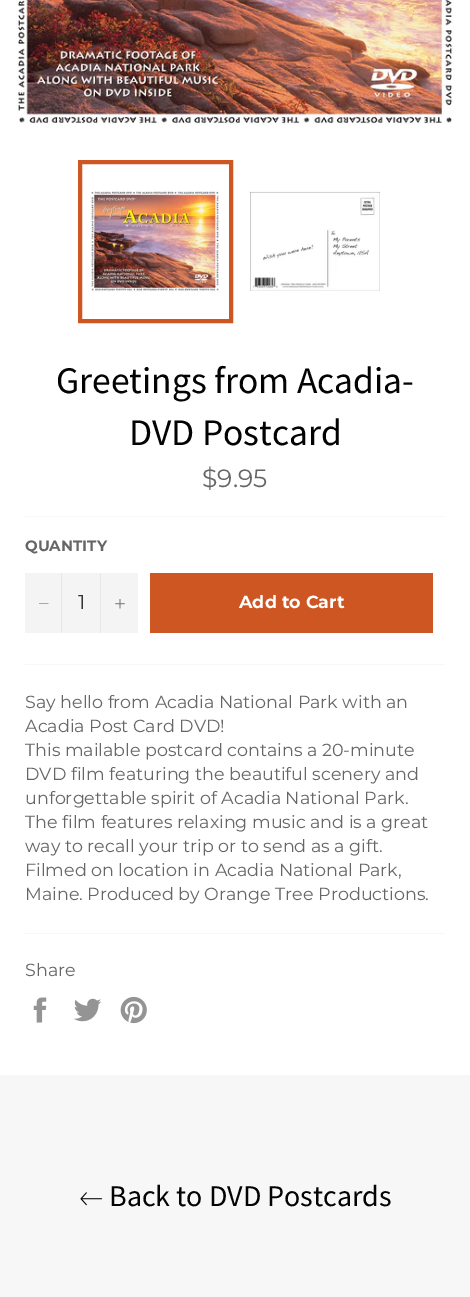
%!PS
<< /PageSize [470 1297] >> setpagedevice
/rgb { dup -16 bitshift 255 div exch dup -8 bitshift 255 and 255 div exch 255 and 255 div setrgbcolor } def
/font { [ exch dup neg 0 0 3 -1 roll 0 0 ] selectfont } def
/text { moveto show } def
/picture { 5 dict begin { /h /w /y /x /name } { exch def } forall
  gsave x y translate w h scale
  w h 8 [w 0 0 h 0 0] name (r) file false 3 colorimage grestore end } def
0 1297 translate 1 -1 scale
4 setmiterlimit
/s1 { /SourceSansPro-Regular 37.5 font 16#030303 rgb } def
/s2 { /Montserrat-Regular 25 font 16#666666 rgb } def
/s3 { /Montserrat-Bold 15 font 16#666666 rgb } def
/s4 { /Montserrat-Regular 20 font 16#333333 rgb } def
/s5 { /Montserrat-Bold 17.5 font 16#FFFFFF rgb } def
/s6 { /Montserrat-Regular 17.5 font 16#666666 rgb } def
/s7 { /SourceSansPro-Regular 30 font 16#030303 rgb } def
16#FFFFFF rgb
0 0 470 1297 rectfill
(pic1.raw) 16 0 438 125 picture
(pic2.raw) 90 191 130 101 picture
16#CE5622 rgb
4 setlinewidth
80 162 151 159 rectstroke
(pic3.raw) 250 191 130 100 picture
s1
(Greetings from Acadia-) 56 393 text
(DVD Postcard) 129 445 text
s2
($9.95) 202 487 text
16#F7F7F7 rgb
25 516 420 1 rectfill
s3
(QUANTITY) 25 551 text
16#F4F4F4 rgb
25 573 113 60 rectfill
16#E7E7E7 rgb
61 573 1 60 rectfill
16#666666 rgb
48.5 603.5 moveto 48.5 604 lineto 39 604 lineto 39 603.5 lineto closepath eofill
s4
(1) 78 609 text
16#E7E7E7 rgb
100 573 1 60 rectfill
(pic4.raw) 115 599 10 10 picture
16#CE5622 rgb
150 573 283 60 rectfill
s5
(Add to Cart) 239 608 text
16#F7F7F7 rgb
25 664 420 1 rectfill
s6
(Say hello from Acadia National Park with an) 25 708 text
(Acadia Post Card DVD!) 25 732 text
(This mailable postcard contains a 20-minute) 25 756 text
(DVD film featuring the beautiful scenery and) 25 780 text
(unforgettable spirit of Acadia National Park.) 25 804 text
(The film features relaxing music and is a great) 25 828 text
(way to recall your trip or to send as a gift.) 25 852 text
(Filmed on location in Acadia National Park,) 25 876 text
(Maine. Produced by Orange Tree Productions.) 25 900 text
16#F7F7F7 rgb
25 933 420 1 rectfill
s6
(Share) 25 976 text
(pic5.raw) 33 997 14 26 picture
(pic6.raw) 74 998 28 24 picture
(pic7.raw) 120 996 27 28 picture
16#F7F7F7 rgb
0 1075 470 222 rectfill
(pic8.raw) 80 1192 23 14 picture
s7
(Back to DVD Postcards) 109 1206 text
showpage
